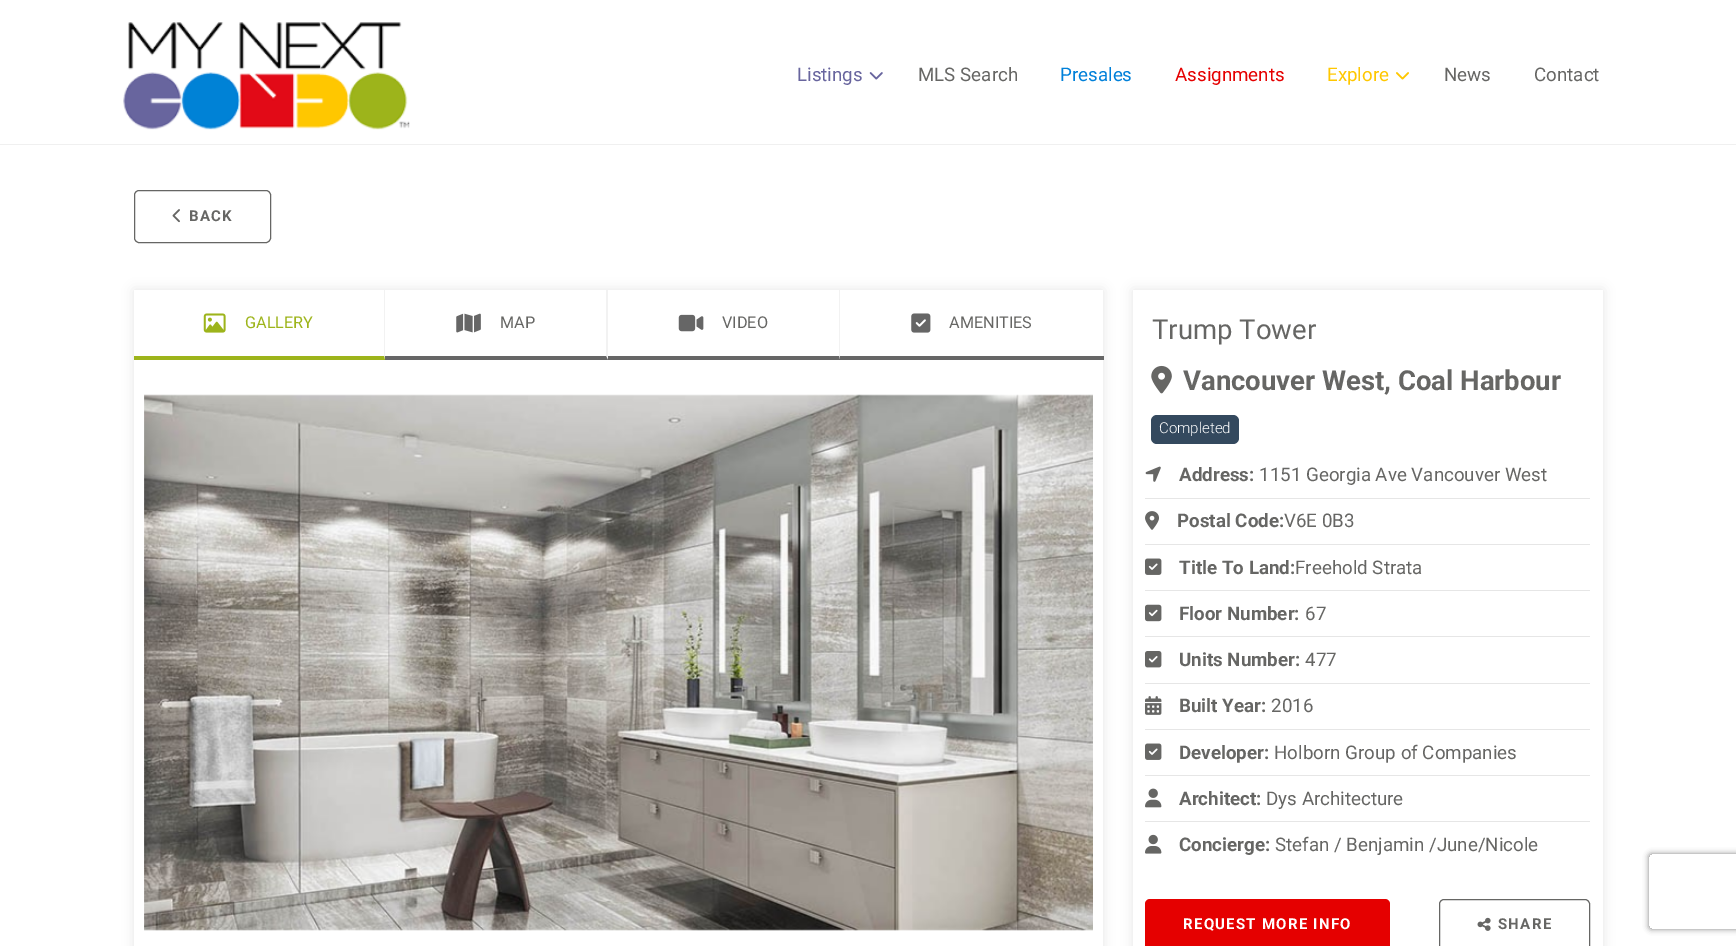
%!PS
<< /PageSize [1736 946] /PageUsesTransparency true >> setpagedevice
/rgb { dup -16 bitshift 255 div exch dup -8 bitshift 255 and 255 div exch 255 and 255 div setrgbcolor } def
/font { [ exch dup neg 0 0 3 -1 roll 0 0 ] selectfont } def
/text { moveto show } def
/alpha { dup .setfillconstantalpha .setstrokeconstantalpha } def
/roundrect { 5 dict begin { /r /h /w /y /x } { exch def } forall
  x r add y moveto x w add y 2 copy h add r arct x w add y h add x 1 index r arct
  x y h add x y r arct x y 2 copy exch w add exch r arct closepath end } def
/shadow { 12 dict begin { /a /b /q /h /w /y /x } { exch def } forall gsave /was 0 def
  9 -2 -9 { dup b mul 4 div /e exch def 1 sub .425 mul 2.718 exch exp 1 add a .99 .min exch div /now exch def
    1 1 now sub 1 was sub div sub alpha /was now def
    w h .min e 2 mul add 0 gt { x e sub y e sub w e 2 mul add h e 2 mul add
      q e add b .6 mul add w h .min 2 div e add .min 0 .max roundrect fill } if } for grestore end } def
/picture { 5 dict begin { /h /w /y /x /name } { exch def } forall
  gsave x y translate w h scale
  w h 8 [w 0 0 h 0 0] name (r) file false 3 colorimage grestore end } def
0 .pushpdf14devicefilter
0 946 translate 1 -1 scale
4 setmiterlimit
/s1 { /Roboto-Regular 18.75 font 16#68659E rgb } def
/s2 { /Roboto-Regular 18.75 font 16#666664 rgb } def
/s3 { /Roboto-Regular 18.75 font 16#0080D9 rgb } def
/s4 { /Roboto-Regular 18.75 font 16#E50000 rgb } def
/s5 { /Roboto-Regular 18.75 font 16#FFC700 rgb } def
/s6 { /Roboto-Regular 16.25 font 16#9DB41B rgb } def
/s7 { /Roboto-Regular 16.25 font 16#666664 rgb } def
/s8 { /Roboto-Regular 27.5 font 16#666664 rgb } def
/s9 { /Roboto-Bold 27.5 font 16#666664 rgb } def
/s10 { /Roboto-Light 15 font 16#FFFFFF rgb } def
/s11 { /Roboto-Bold 18.75 font 16#666664 rgb } def
16#FFFFFF rgb
0 0 1736 946 rectfill
16#F0F0F0 rgb
0 144 1736 1 rectfill
(pic1.raw) 123 22 287 108 picture
s1
(Listings) 797 81 text
(pic2.raw) 869 72 14 8 picture
s2
(MLS Search) 918 81 text
s3
(Presales) 1060 81 text
s4
(Assignments) 1175 81 text
s5
(Explore) 1327 81 text
(pic3.raw) 1396 72 13 8 picture
s2
(News) 1444 81 text
(Contact) 1534 81 text
134.5 190.5 136 52 4.5 roundrect stroke
(pic4.raw) 172 209 8 14 picture
/Roboto-Bold 15 font
189 221 moveto 1.25 0 (BACK) ashow
16#E6E6E6 rgb
134 290 969 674 0 6 1 shadow
16#FFFFFF rgb
134 290 969 656 rectfill
16#F2F2F2 rgb
385 290 moveto 385 360 lineto 384 356 lineto 384 290 lineto closepath fill
16#9DB41B rgb
385 360 moveto 134 360 lineto 134 356 lineto 384 356 lineto closepath fill
(pic5.raw) 203 313 23 20 picture
s6
(GALLERY) 245 328 text
16#F2F2F2 rgb
608 290 moveto 608 360 lineto 606 356 lineto 606 290 lineto closepath fill
16#666666 rgb
608 360 moveto 385 360 lineto 385 356 lineto 606 356 lineto closepath fill
(pic6.raw) 456 313 25 20 picture
s7
(MAP) 500 328 text
16#F2F2F2 rgb
840 290 moveto 840 360 lineto 839 356 lineto 839 290 lineto closepath fill
16#666666 rgb
840 360 moveto 608 360 lineto 608 356 lineto 839 356 lineto closepath fill
(pic7.raw) 678 314 26 18 picture
s7
(VIDEO) 722 328 text
16#666666 rgb
840 356 264 4 rectfill
(pic8.raw) 911 313 20 20 picture
s7
(AMENITIES) 949 328 text
(pic9.raw) 144 394 949 537 picture
16#E6E6E6 rgb
1133 290 470 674 0 6 1 shadow
16#FFFFFF rgb
1133 290 470 656 rectfill
s8
(Trump Tower) 1152 339 text
(pic10.raw) 1151 365 21 29 picture
s9
(Vancouver West, Coal Harbour) 1183 390 text
16#34495E rgb
1151 415 88 29 6 roundrect fill
s10
(Completed) 1159 433 text
16#E6E6E6 rgb
1145 498 445 1 rectfill
(pic11.raw) 1145 466 16 16 picture
s11
(Address:) 1179 481 text
s2
(1151 Georgia Ave Vancouver West) 1259 481 text
16#E6E6E6 rgb
1145 544 445 1 rectfill
(pic12.raw) 1145 511 14 19 picture
s11
(Postal Code:) 1177 527 text
s2
(V6E 0B3) 1284 527 text
16#E6E6E6 rgb
1145 590 445 1 rectfill
(pic13.raw) 1145 558 17 17 picture
s11
(Title To Land:) 1179 574 text
s2
(Freehold Strata) 1295 574 text
16#E6E6E6 rgb
1145 636 445 1 rectfill
(pic14.raw) 1145 604 17 18 picture
s11
(Floor Number:) 1179 620 text
s2
(67) 1305 620 text
16#E6E6E6 rgb
1145 683 445 1 rectfill
(pic15.raw) 1145 651 17 17 picture
s11
(Units Number:) 1179 666 text
s2
(477) 1305 666 text
16#E6E6E6 rgb
1145 729 445 1 rectfill
(pic16.raw) 1145 696 17 19 picture
s11
(Built Year:) 1179 712 text
s2
(2016) 1271 712 text
16#E6E6E6 rgb
1145 775 445 1 rectfill
(pic13.raw) 1145 743 17 17 picture
s11
(Developer:) 1179 759 text
s2
(Holborn Group of Companies) 1274 759 text
16#E6E6E6 rgb
1145 821 445 1 rectfill
(pic17.raw) 1145 788 17 20 picture
s11
(Architect:) 1179 805 text
s2
(Dys Architecture) 1266 805 text
(pic18.raw) 1145 834 17 20 picture
s11
(Concierge:) 1179 851 text
s2
(Stefan / Benjamin /June/Nicole) 1275 851 text
16#E50000 rgb
1145 899 245 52 5 roundrect fill
/Roboto-Bold 15 font
16#FFFFFF rgb
1183 929 moveto 1.25 0 (REQUEST MORE INFO) ashow
16#666664 rgb
1439.5 899.5 150 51 4.5 roundrect stroke
(pic19.raw) 1477 917 14 14 picture
1498 929 moveto 1.25 0 (SHARE) ashow
gsave
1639 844 moveto 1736 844 lineto 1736 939 lineto 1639 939 lineto closepath 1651.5 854 moveto 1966.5 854 lineto 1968 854 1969 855 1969 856.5 curveto 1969 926.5 lineto 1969 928 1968 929 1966.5 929 curveto 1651.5 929 lineto 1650 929 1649 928 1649 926.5 curveto 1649 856.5 lineto 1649 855 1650 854 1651.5 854 curveto closepath eoclip newpath
16#808080 rgb
1649 854 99 75 2.5 3 1 shadow
grestore
.poppdf14devicefilter showpage
